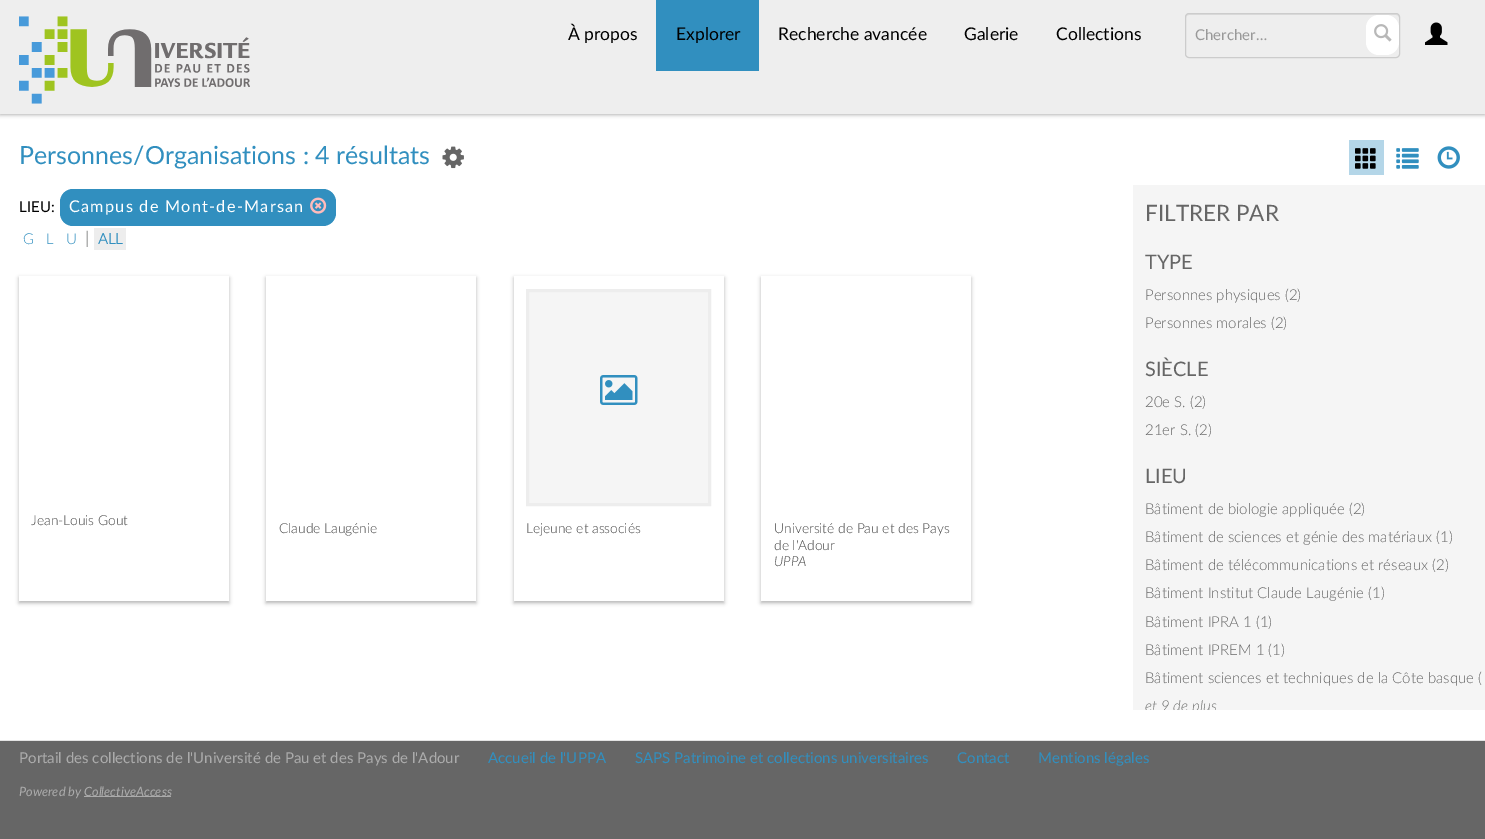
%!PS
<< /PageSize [1485 839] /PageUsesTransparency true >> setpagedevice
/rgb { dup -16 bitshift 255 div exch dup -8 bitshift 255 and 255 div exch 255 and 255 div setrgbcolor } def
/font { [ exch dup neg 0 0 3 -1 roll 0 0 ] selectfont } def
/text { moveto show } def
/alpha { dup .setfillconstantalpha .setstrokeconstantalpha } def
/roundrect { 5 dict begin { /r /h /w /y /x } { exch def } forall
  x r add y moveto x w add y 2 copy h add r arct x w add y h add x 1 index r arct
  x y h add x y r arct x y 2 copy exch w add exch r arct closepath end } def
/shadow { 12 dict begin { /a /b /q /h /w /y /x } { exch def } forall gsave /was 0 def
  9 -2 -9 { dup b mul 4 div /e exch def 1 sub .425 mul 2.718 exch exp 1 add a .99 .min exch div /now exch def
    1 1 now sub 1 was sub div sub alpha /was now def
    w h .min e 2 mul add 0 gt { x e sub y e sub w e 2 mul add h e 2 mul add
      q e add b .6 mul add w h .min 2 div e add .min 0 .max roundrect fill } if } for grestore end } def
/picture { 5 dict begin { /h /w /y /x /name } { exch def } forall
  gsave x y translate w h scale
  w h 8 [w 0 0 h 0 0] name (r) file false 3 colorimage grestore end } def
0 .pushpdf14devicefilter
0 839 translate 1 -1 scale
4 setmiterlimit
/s1 { /Lato-Regular 17.5 font 16#000000 rgb } def
/s2 { /Lato-Regular 15 font 16#999999 rgb } def
/s3 { /Lato-Regular 25 font 16#318FBF rgb } def
/s4 { /Lato-Regular 15 font 16#000000 rgb } def
/s5 { /Lato-Light 15 font 16#318FBF rgb } def
/s6 { /Lato-Light 17.5 font 16#6D6E6D rgb } def
/s7 { /Lato-Bold 15 font 16#318FBF rgb } def
/s8 { /Lato-Light 13.75 font 16#454545 rgb } def
/s9 { /Lato-LightItalic 13.75 font 16#454545 rgb } def
/s10 { /Lato-Regular 22.5 font 16#666666 rgb } def
/s11 { /Lato-Regular 20 font 16#666666 rgb } def
/s12 { /Lato-Light 15 font 16#666666 rgb } def
/s13 { /Lato-LightItalic 15 font 16#6D6E6D rgb } def
/s14 { /Lato-Regular 15 font 16#ABABAB rgb } def
/s15 { /Lato-Regular 15 font 16#318FBF rgb } def
/s16 { /Lato-Italic 12.75 font 16#ABABAB rgb } def
16#FFFFFF rgb
0 0 1485 839 rectfill
16#000000 rgb
0 1 1485 114 0 2 0.3 shadow
16#EEEEEE rgb
0 0 1485 114 rectfill
(pic1.raw) 19 16 231 88 picture
s1
(À propos) 568 40 text
16#318FBF rgb
656 0 103 71 rectfill
s1
(Explorer) 676 40 text
(Recherche avancée) 778 40 text
(Galerie) 964 40 text
(Collections) 1056 40 text
16#DCDCDC rgb
1189 15 moveto 1396 15 lineto 1398 15 1399 16 1399 18 curveto 1399 16 lineto 1399 15 1398 14 1396 14 curveto 1188 14 lineto 1187 14 1186 15 1186 16 curveto 1186 18 lineto 1186 16 1187 15 1189 15 curveto closepath fill
16#CCCCCC rgb
1185.5 13.5 214 44 3.5 roundrect stroke
s2
(Chercher…) 1195 40 text
16#FFFFFF rgb
1366 15 33 40 13 roundrect fill
(pic2.raw) 1374 24 18 18 picture
(pic3.raw) 1425 22 23 23 picture
s3
(Personnes/Organisations : 4 résultats) 19 164 text
(pic4.raw) 442 146 22 23 picture
s4
(LIEU:) 19 212 text
16#318FBF rgb
60 189 276 37 13 roundrect fill
/Lato-Regular 16.25 font
16#FFFFFF rgb
69 212 moveto 1.25 0 (Campus de Mont-de-Marsan) ashow
(pic5.raw) 310 197 17 17 picture
s5
(G) 23 244 text
(L) 46 244 text
(U) 66 244 text
s6
(|) 85 244 text
16#EDEDED rgb
94 228 32 22 rectfill
s7
(ALL) 98 244 text
16#000000 rgb
19 278 210 325 0 2 0.3 shadow
16#FFFFFF rgb
19 276 210 325 rectfill
s8
(Jean-Louis Gout) 31 525 text
16#000000 rgb
266 278 210 325 0 2 0.3 shadow
16#FFFFFF rgb
266 276 210 325 rectfill
s8
(Claude Laugénie) 279 533 text
16#000000 rgb
514 278 210 325 0 2 0.3 shadow
16#FFFFFF rgb
514 276 210 325 rectfill
16#F5F5F5 rgb
527.5 290.5 moveto 709.5 290.5 lineto 709.5 504.5 lineto 527.5 504.5 lineto closepath gsave fill grestore
16#EDEDED rgb
3 setlinewidth
stroke
(pic6.raw) 600 375 38 30 picture
s8
(Lejeune et associés) 526 533 text
16#000000 rgb
761 278 210 325 0 2 0.3 shadow
16#FFFFFF rgb
761 276 210 325 rectfill
s8
(Université de Pau et des Pays) 774 533 text
(de l'Adour) 774 550 text
s9
(UPPA) 774 566 text
16#B4D6E8 rgb
1349 140 35 35 rectfill
(pic7.raw) 1355 148 21 21 picture
(pic8.raw) 1396 148 23 21 picture
(pic9.raw) 1437 146 23 23 picture
16#F5F5F5 rgb
1133 185 352 525 rectfill
s10
(FILTRER PAR) 1145 221 text
s11
(TYPE) 1145 269 text
s12
(Personnes physiques \(2\)) 1145 300 text
(Personnes morales \(2\)) 1145 328 text
s11
(SIÈCLE) 1145 376 text
s12
(20e S. \(2\)) 1145 407 text
(21er S. \(2\)) 1145 435 text
s11
(LIEU) 1145 483 text
s12
(Bâtiment de biologie appliquée \(2\)) 1145 514 text
(Bâtiment de sciences et génie des matériaux \(1\)) 1145 542 text
(Bâtiment de télécommunications et réseaux \(2\)) 1145 570 text
(Bâtiment Institut Claude Laugénie \(1\)) 1145 598 text
(Bâtiment IPRA 1 \(1\)) 1145 627 text
(Bâtiment IPREM 1 \(1\)) 1145 655 text
(Bâtiment sciences et techniques de la Côte basque \() 1145 683 text
gsave
1133 185 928 525 rectclip
s13
(et 9 de plus) 1145 711 text
grestore
0 741 1485 98 rectfill
16#E3E3E3 rgb
0 740 1485 1 rectfill
s14
(Portail des collections de l'Université de Pau et des Pays de l'Adour) 19 763 text
s15
(Accueil de l'UPPA) 488 763 text
(SAPS Patrimoine et collections universitaires) 635 763 text
(Contact) 957 763 text
(Mentions légales) 1038 763 text
s16
(Powered by) 19 796 text
84 796 87 1 rectfill
(CollectiveAccess) 84 796 text
.poppdf14devicefilter showpage
